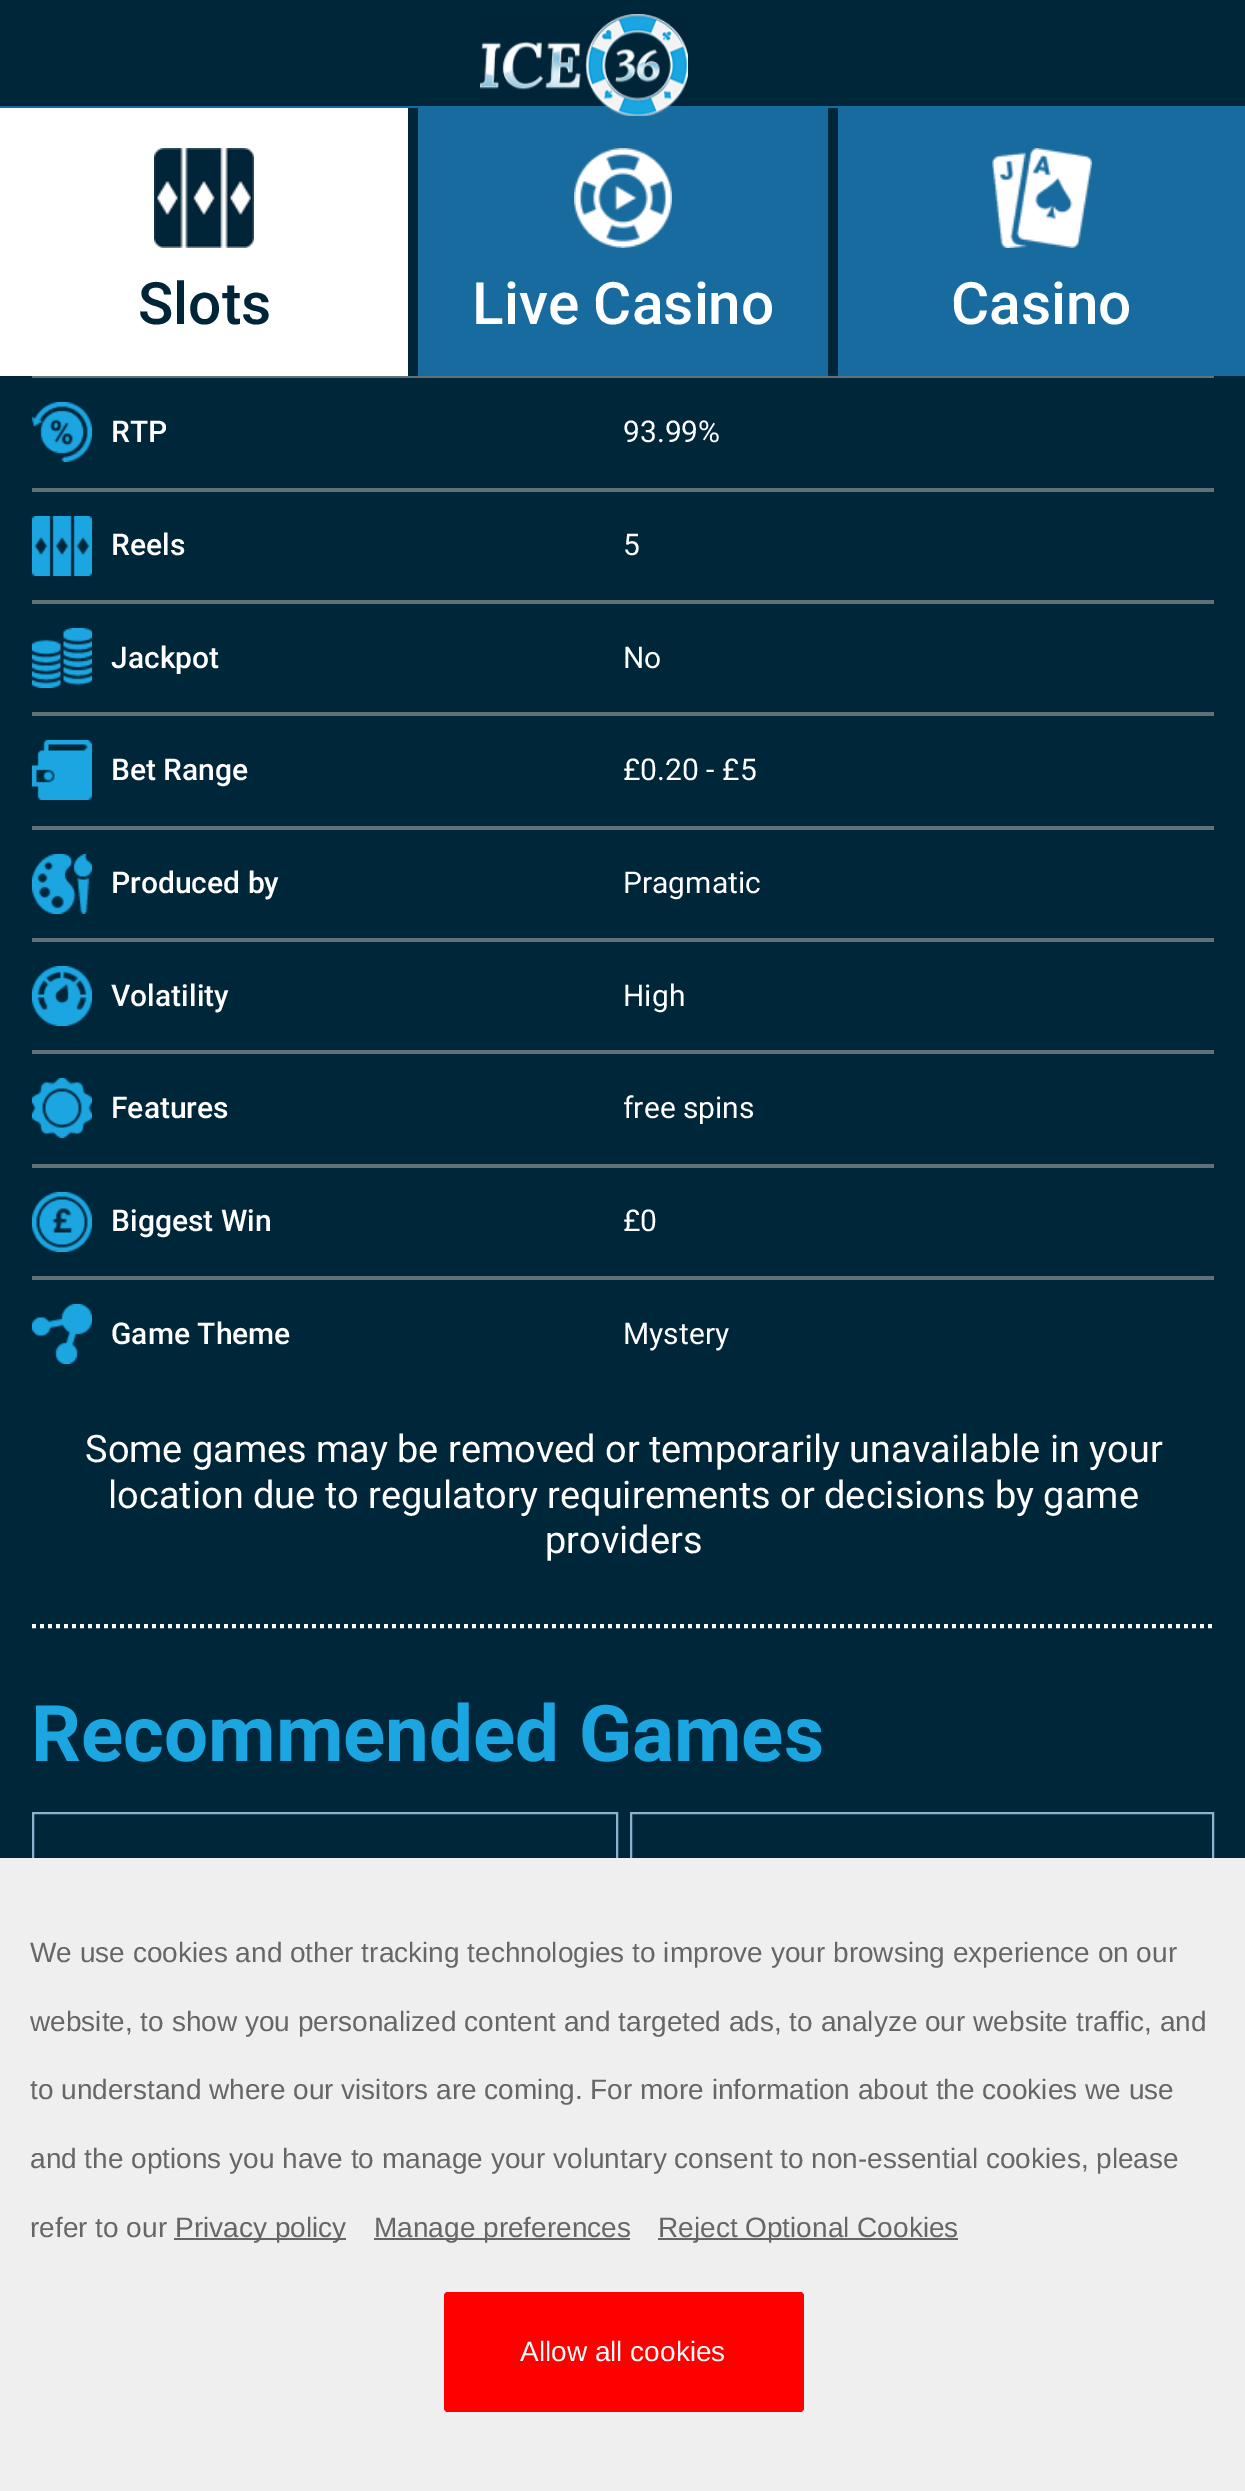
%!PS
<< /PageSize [1245 2491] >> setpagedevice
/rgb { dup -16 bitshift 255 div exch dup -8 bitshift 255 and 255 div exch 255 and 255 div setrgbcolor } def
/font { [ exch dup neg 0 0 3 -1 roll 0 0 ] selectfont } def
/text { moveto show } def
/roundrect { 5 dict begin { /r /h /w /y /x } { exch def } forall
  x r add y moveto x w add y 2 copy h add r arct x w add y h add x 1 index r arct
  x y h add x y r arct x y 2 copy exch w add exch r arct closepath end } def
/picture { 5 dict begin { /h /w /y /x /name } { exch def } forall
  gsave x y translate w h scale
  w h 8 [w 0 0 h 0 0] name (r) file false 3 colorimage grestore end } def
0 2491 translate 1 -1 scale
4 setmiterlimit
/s1 { /Roboto-Medium 58.5 font 16#002538 rgb } def
/s2 { /Roboto-Medium 58.5 font 16#FFFFFF rgb } def
/s3 { /Roboto-Medium 30 font 16#FFFFFF rgb } def
/s4 { /Roboto-Regular 30 font 16#FFFFFF rgb } def
/s5 { /Roboto-Regular 37.9 font 16#FFFFFF rgb } def
/s6 { /Roboto-Bold 78.1 font 16#1BA6E1 rgb } def
/s7 { /LiberationSans-Regular 28 font 16#666666 rgb } def
/s8 { /LiberationSans-Regular 28 font 16#FFFFFF rgb } def
16#00263A rgb
0 0 1245 2491 rectfill
16#186B9D rgb
0 106 1245 2 rectfill
16#186B9F rgb
418 108 410 268 rectfill
(pic1.raw) 480 14 208 102 picture
16#FFFFFF rgb
0 108 408 268 rectfill
(pic2.raw) 154 148 100 100 picture
s1
(Slots) 138 324 text
(pic3.raw) 574 148 98 100 picture
s2
(Live Casino) 472 324 text
16#186B9F rgb
838 108 407 268 rectfill
(pic4.raw) 992 148 100 100 picture
s2
(Casino) 951 324 text
16#607178 rgb
32 376 1182 2 rectfill
32 488 1182 4 rectfill
(pic5.raw) 32 402 60 60 picture
s3
(RTP) 111 442 text
s4
(93.99%) 623 442 text
16#607178 rgb
32 600 1182 4 rectfill
(pic6.raw) 32 516 60 60 picture
s3
(Reels) 111 555 text
s4
(5) 623 555 text
16#607178 rgb
32 712 1182 4 rectfill
(pic7.raw) 32 628 60 60 picture
s3
(Jackpot) 111 668 text
s4
(No) 623 668 text
16#607178 rgb
32 826 1182 4 rectfill
(pic8.raw) 32 740 60 60 picture
s3
(Bet Range) 111 780 text
s4
(£0.20 - £5) 623 780 text
16#607178 rgb
32 938 1182 4 rectfill
(pic9.raw) 32 854 60 60 picture
s3
(Produced by) 111 893 text
s4
(Pragmatic) 623 893 text
16#607178 rgb
32 1050 1182 4 rectfill
(pic10.raw) 32 966 60 60 picture
s3
(Volatility) 111 1006 text
s4
(High) 623 1006 text
16#607178 rgb
32 1164 1182 4 rectfill
(pic11.raw) 32 1078 60 60 picture
s3
(Features) 111 1118 text
s4
(free spins) 623 1118 text
16#607178 rgb
32 1276 1182 4 rectfill
(pic12.raw) 32 1192 60 60 picture
s3
(Biggest Win) 111 1231 text
s4
(£0) 623 1231 text
(pic13.raw) 32 1304 60 60 picture
s3
(Game Theme) 111 1344 text
s4
(Mystery) 623 1344 text
s5
(Some games may be removed or temporarily unavailable in your) 85 1462 text
(location due to regulatory requirements or decisions by game) 108 1508 text
(providers) 545 1553 text
4 setlinewidth
[4 4] 0 setdash
32 1626 moveto 1214 1626 lineto stroke
s6
(Recommended Games) 31 1761 text
16#8AB4CD rgb
2 setlinewidth
[] 0 setdash
33 1813 584 584 rectstroke
631 1813 582 584 rectstroke
16#EFEFEF rgb
0 1858 1245 633 rectfill
s7
(We use cookies and other tracking technologies to improve your browsing experience on our) 30 1962 text
(website, to show you personalized content and targeted ads, to analyze our website traffic, and) 30 2031 text
(to understand where our visitors are coming. For more information about the cookies we use) 30 2099 text
(and the options you have to manage your voluntary consent to non-essential cookies, please) 30 2168 text
(refer to our) 30 2237 text
174 2238 172 2 rectfill
(Privacy policy) 175 2237 text
374 2238 256 2 rectfill
(Manage preferences) 374 2237 text
658 2238 300 2 rectfill
(Reject Optional Cookies) 658 2237 text
16#FF0000 rgb
444 2292 360 120 4 roundrect fill
s8
(Allow all cookies) 520 2361 text
showpage
